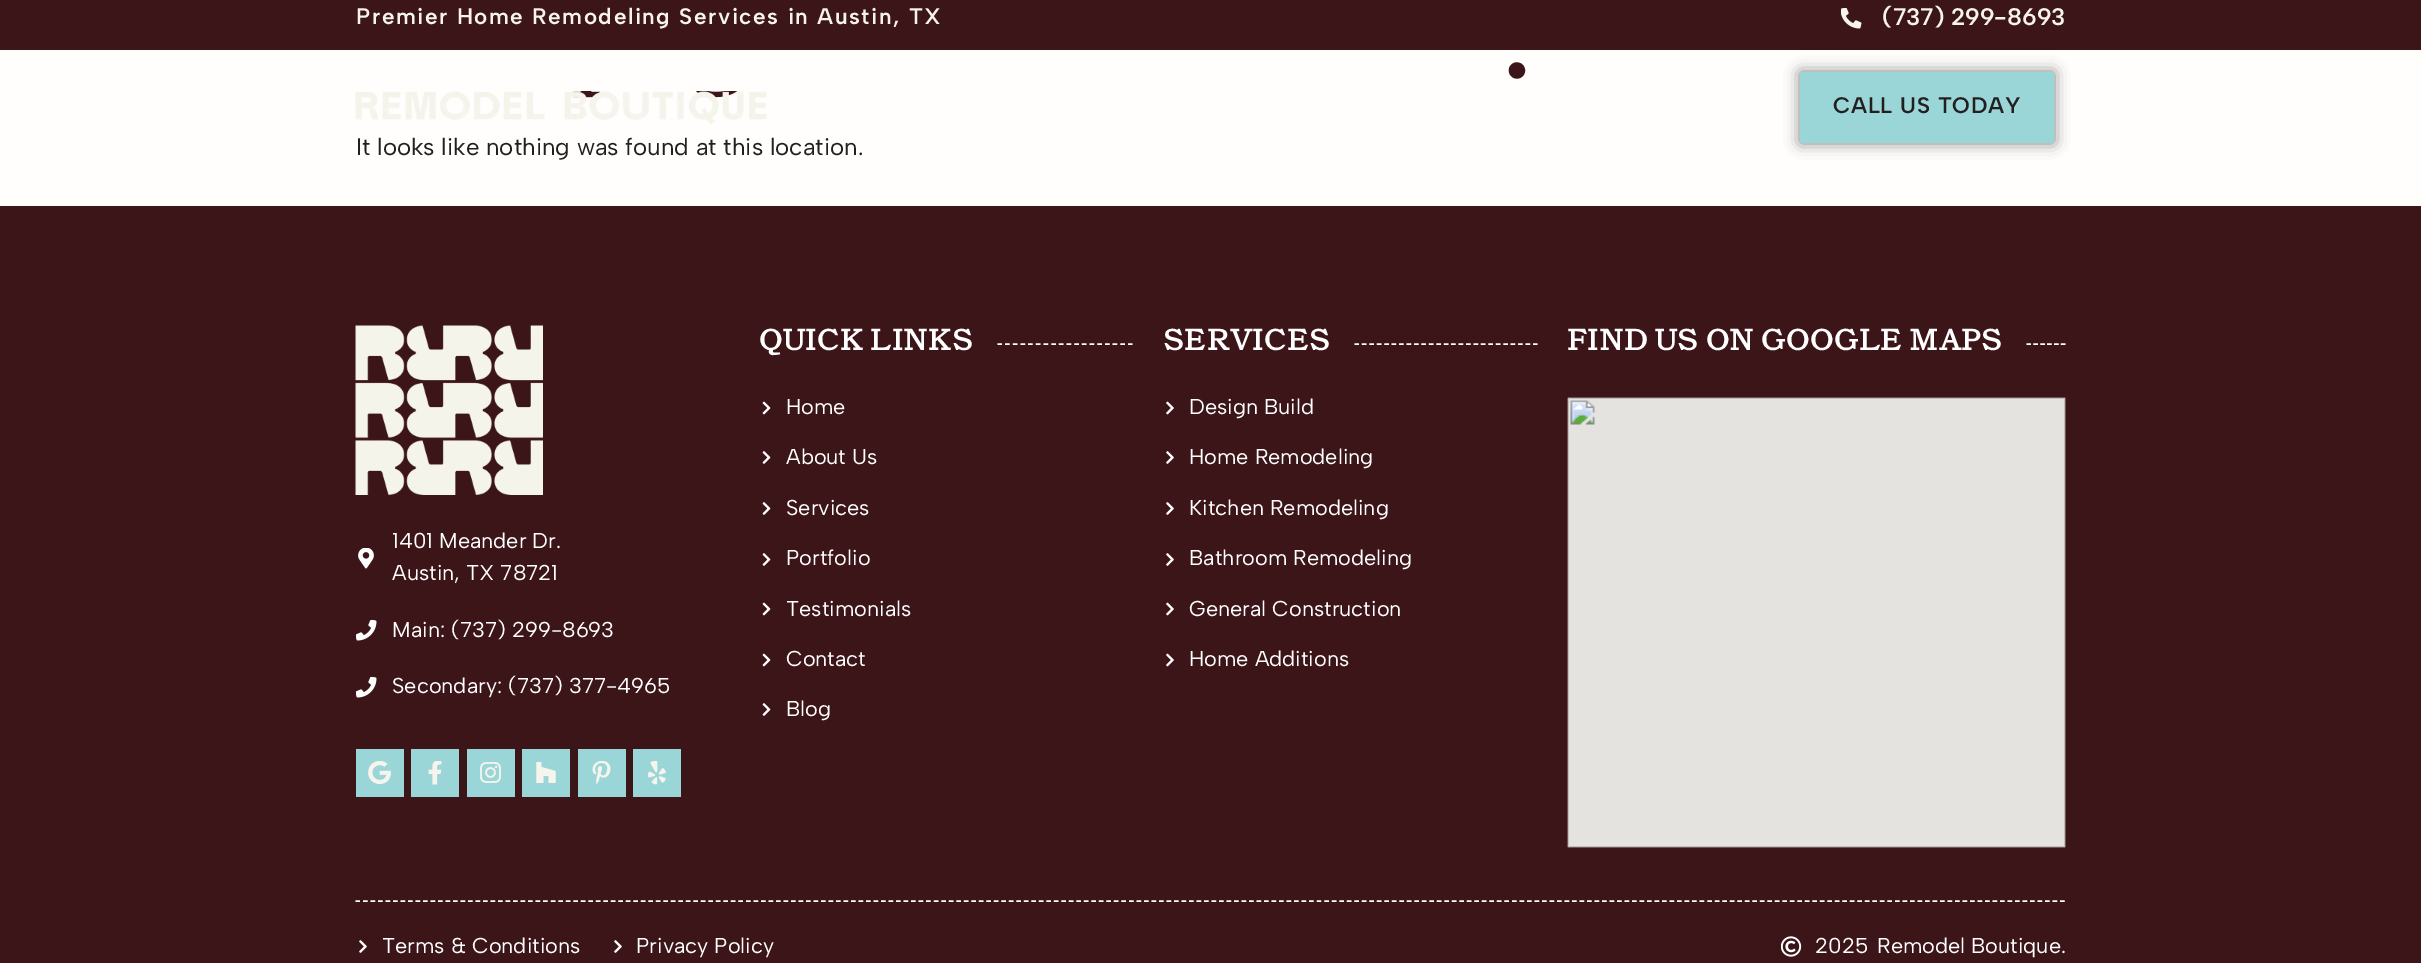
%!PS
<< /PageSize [2421 963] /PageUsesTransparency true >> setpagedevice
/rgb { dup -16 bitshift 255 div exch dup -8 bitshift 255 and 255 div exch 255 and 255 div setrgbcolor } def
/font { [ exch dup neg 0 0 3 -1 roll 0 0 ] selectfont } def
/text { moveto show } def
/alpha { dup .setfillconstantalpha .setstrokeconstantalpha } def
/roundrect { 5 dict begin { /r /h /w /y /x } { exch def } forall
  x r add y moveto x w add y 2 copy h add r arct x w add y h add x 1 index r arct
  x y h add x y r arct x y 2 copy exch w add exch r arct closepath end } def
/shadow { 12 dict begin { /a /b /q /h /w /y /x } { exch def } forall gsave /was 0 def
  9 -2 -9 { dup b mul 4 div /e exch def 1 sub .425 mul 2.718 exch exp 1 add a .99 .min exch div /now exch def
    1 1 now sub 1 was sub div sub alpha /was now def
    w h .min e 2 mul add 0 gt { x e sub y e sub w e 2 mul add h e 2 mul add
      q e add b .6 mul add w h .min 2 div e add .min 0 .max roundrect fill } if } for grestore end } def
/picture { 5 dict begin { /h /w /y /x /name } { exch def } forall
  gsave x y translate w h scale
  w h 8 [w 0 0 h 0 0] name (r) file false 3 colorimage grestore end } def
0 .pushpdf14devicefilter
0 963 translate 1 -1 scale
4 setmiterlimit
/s1 { /AlbertSans-SemiBold 24 font 16#F6F4EC rgb } def
/s2 { /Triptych-Regular 96 font 16#3C1519 rgb } def
/s3 { /AlbertSans-Regular 24 font 16#231F20 rgb } def
/s4 { /AlbertSans-Regular 21.6 font 16#FFFFFF rgb } def
16#FFFEFC rgb
0 0 2421 963 rectfill
16#3C1519 rgb
0 0 2421 50 rectfill
/AlbertSans-SemiBold 22.5 font
16#F6F4EC rgb
356 24 moveto 1.5 0 (Premier Home Remodeling Services in Austin, TX) ashow
(pic1.raw) 1841 8 21 21 picture
s1
(\(737\) 299-8693) 1882 25 text
(pic2.raw) 355 91 412 34 picture
16#000000 rgb
1800 72 254 71 0 7.5 0.5 shadow
16#9AD6D7 rgb
1800 72 254 71 rectfill
/AlbertSans-SemiBold 22.5 font
16#231F20 rgb
1833 113 moveto 0.75 0 (CALL US TODAY) ashow
s2
(.) 1502 78 text
s3
(It looks like nothing was found at this location.) 356 155 text
16#3C1519 rgb
0 206 2421 757 rectfill
/Triptych-Bold 27 font
16#FFFFFF rgb
759 350 moveto 0.75 0 (QUICK LINKS) ashow
1.5 setlinewidth
[4.5 3.18] 0 setdash
997.5 344 moveto 1132.5 344 lineto stroke
(pic3.raw) 762 401 9 14 picture
s4
(Home) 786 414 text
(pic4.raw) 762 451 9 13 picture
(About Us) 786 464 text
(pic4.raw) 762 502 9 13 picture
(Services) 786 515 text
(pic4.raw) 762 553 9 13 picture
(Portfolio) 786 565 text
(pic3.raw) 762 602 9 14 picture
(Testimonials) 786 616 text
(pic3.raw) 762 653 9 14 picture
(Contact) 786 666 text
(pic4.raw) 762 703 9 13 picture
(Blog) 786 716 text
/Triptych-Bold 27 font
1163 350 moveto 0.75 0 (SERVICES) ashow
[4.5 2.94] 0 setdash
1354.5 344 moveto 1537.5 344 lineto stroke
(pic5.raw) 1166 401 8 14 picture
s4
(Design Build) 1189 414 text
(pic6.raw) 1166 451 8 13 picture
(Home Remodeling) 1189 464 text
(pic6.raw) 1166 502 8 13 picture
(Kitchen Remodeling) 1189 515 text
(pic6.raw) 1166 553 8 13 picture
(Bathroom Remodeling) 1189 565 text
(pic5.raw) 1166 602 8 14 picture
(General Construction) 1189 616 text
(pic5.raw) 1166 653 8 14 picture
(Home Additions) 1189 666 text
/Triptych-Bold 27 font
1567 350 moveto 0.75 0 (FIND US ON GOOGLE MAPS) ashow
[4.5 2.4] 0 setdash
2026.5 344 moveto 2065.5 344 lineto stroke
(pic7.raw) 1567 397 499 451 picture
(pic8.raw) 355 325 188 170 picture
(pic9.raw) 358 548 16 21 picture
s4
(1401 Meander Dr.) 392 548 text
(Austin, TX 78721) 392 580 text
(pic10.raw) 356 620 21 21 picture
(Main: \(737\) 299-8693) 392 637 text
(pic10.raw) 356 677 21 21 picture
(Secondary: \(737\) 377-4965) 392 693 text
16#9AD6D7 rgb
356 749 48 48 rectfill
(pic11.raw) 368 761 23 24 picture
411 749 48 48 rectfill
(pic12.raw) 428 761 14 24 picture
467 749 48 48 rectfill
(pic13.raw) 480 762 21 21 picture
522 749 48 48 rectfill
(pic14.raw) 536 762 20 21 picture
578 749 48 48 rectfill
(pic15.raw) 592 761 19 24 picture
633 749 48 48 rectfill
(pic16.raw) 648 761 18 24 picture
16#FFFFFF rgb
[4.5 3.01] 0 setdash
355.5 901 moveto 2065.5 901 lineto stroke
(pic6.raw) 359 940 8 13 picture
(Terms & Conditions) 382 953 text
(pic6.raw) 614 940 8 13 picture
(Privacy Policy) 636 953 text
(pic17.raw) 1781 936 21 21 picture
(2025) 1815 953 text
(Remodel Boutique.) 1877 953 text
.poppdf14devicefilter showpage
